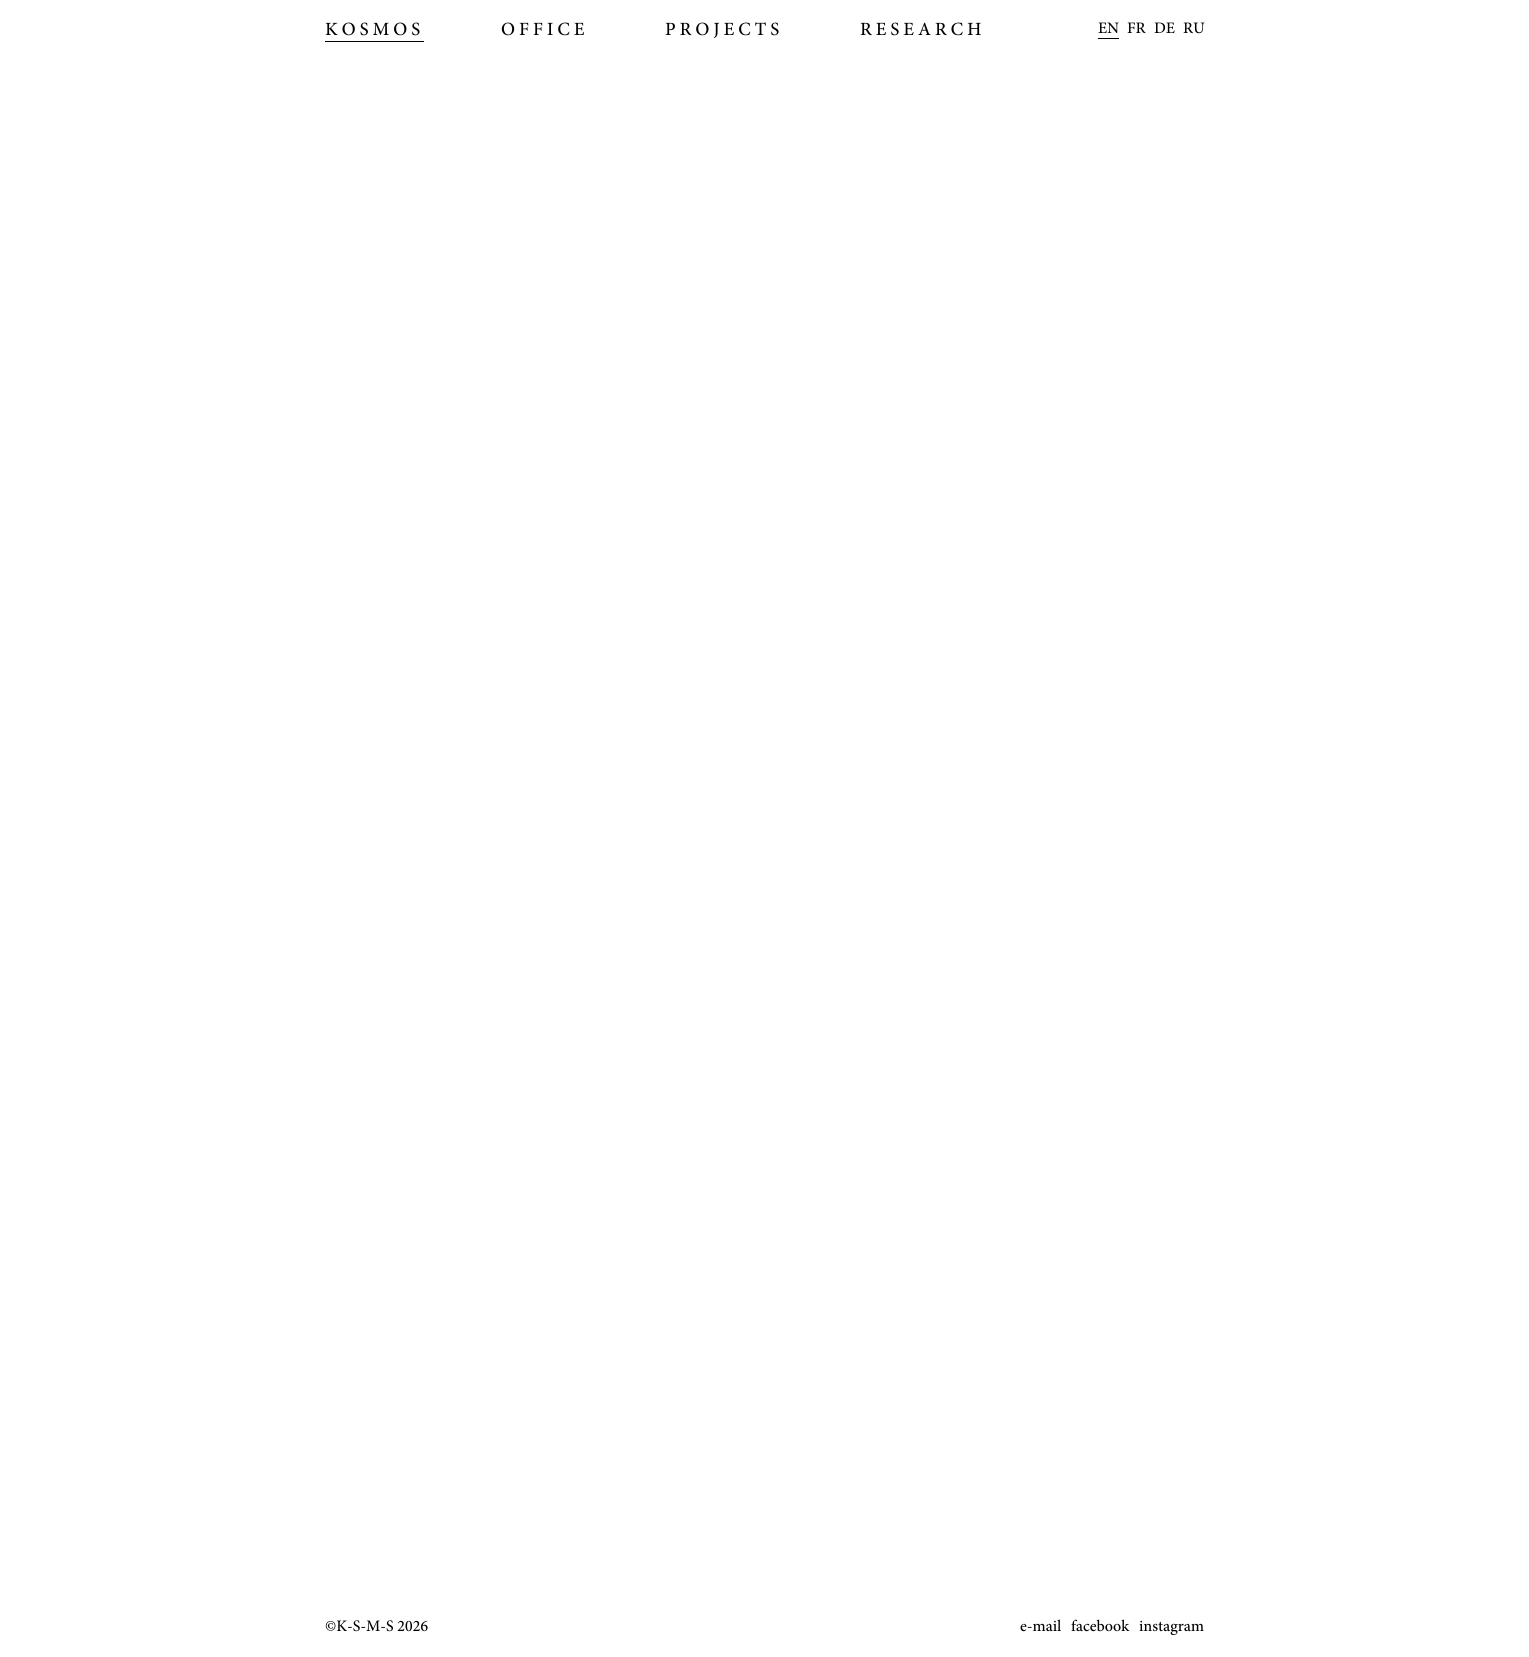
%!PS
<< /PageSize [1529 1657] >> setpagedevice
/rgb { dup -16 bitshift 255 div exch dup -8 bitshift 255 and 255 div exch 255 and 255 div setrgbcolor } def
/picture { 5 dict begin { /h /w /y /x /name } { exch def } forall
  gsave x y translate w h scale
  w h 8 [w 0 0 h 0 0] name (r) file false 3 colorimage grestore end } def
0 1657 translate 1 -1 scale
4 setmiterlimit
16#FFFFFF rgb
0 0 1529 1657 rectfill
(pic1.raw) 325 22 95 14 picture
16#000000 rgb
325 41 99 1 rectfill
(pic2.raw) 501 22 84 14 picture
(pic3.raw) 665 22 114 16 picture
(pic4.raw) 860 22 121 14 picture
(pic5.raw) 1098 22 21 12 picture
(pic6.raw) 1127 22 19 12 picture
(pic7.raw) 1154 22 21 11 picture
(pic8.raw) 1183 22 22 12 picture
1098 38 21 1 rectfill
(pic9.raw) 325 1620 103 12 picture
(pic10.raw) 1020 1619 41 13 picture
(pic11.raw) 1071 1619 59 13 picture
(pic12.raw) 1139 1620 65 16 picture
showpage
